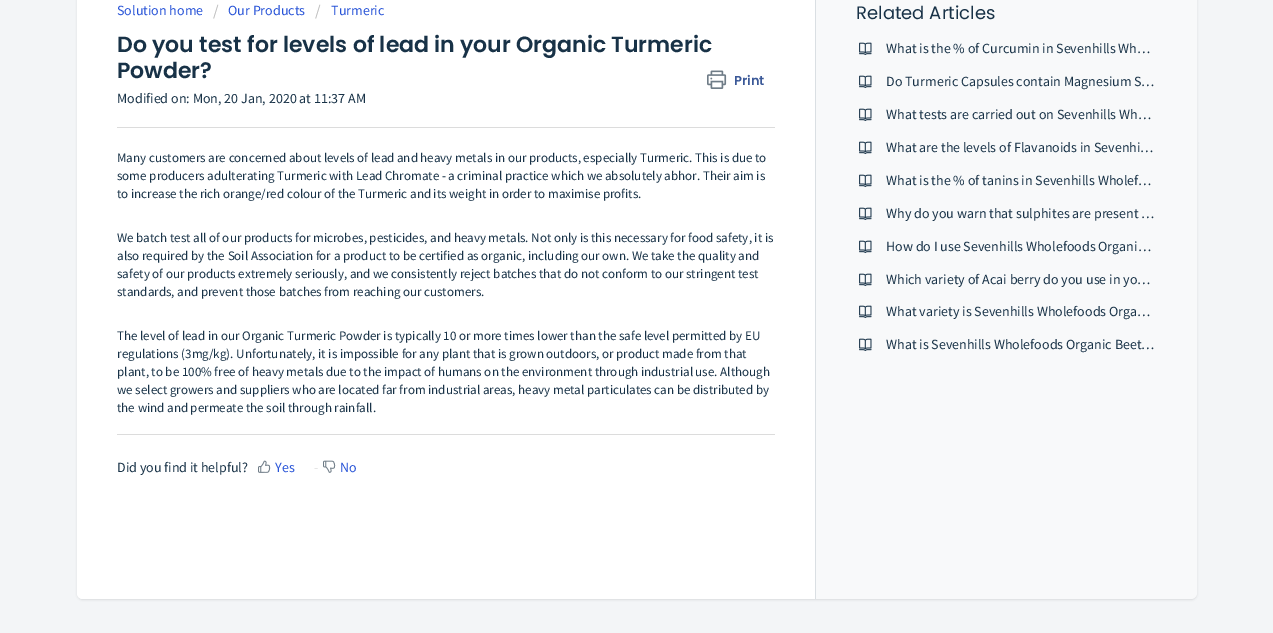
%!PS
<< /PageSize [1273 633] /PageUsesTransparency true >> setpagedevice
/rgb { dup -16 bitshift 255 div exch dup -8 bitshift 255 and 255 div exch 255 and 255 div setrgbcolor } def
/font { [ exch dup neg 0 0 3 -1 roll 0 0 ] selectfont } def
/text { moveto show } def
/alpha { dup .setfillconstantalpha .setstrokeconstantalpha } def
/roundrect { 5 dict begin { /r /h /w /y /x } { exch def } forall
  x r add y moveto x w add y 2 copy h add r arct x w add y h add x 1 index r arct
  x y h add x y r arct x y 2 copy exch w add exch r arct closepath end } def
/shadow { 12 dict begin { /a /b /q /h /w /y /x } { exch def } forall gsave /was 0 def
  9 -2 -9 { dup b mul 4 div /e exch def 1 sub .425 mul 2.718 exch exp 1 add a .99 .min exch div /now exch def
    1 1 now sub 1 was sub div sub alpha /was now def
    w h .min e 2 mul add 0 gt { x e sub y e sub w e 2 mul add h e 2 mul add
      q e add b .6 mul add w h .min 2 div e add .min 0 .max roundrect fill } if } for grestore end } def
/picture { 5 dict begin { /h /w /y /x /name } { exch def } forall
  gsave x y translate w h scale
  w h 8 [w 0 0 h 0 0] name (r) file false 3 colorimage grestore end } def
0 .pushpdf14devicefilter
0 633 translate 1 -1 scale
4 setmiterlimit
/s1 { /SourceSansPro-Regular 14 font 16#2753D7 rgb } def
/s2 { /SourceSansPro-Regular 16 font 16#BBBBBB rgb } def
/s3 { /Poppins-SemiBold 22 font 16#183247 rgb } def
/s4 { /Poppins-SemiBold 13 font 16#3B5998 rgb } def
/s5 { /SourceSansPro-Regular 14 font 16#183247 rgb } def
/s6 { /SourceSansPro-Regular 13 font 16#183247 rgb } def
/s7 { /SourceSansPro-Regular 14 font 16#E5E5E5 rgb } def
/s8 { /Poppins-Regular 18 font 16#183247 rgb } def
16#F3F5F7 rgb
0 0 1273 633 rectfill
16#3F3F44 rgb
77 -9 1120 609 6 1 0.15 shadow
16#F8F9FA rgb
77 -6 1120 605 6 roundrect fill
16#FFFFFF rgb
83 -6 moveto 816 -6 lineto 816 599 lineto 83 599 lineto 79.5 599 77 596.5 77 593 curveto 77 0 lineto 77 -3.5 79.5 -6 83 -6 curveto closepath fill
16#DADFE3 rgb
815 0 1 599 rectfill
s1
(Solution home) 117 15 text
s2
(/) 213 16 text
s1
(Our Products) 228 15 text
s2
(/) 315 16 text
s1
(Turmeric) 331 15 text
s3
(Do you test for levels of lead in your Organic Turmeric) 117 52 text
(Powder?) 117 78 text
(pic1.raw) 707 70 20 19 picture
s4
(Print) 734 85 text
s5
(Modified on: Mon, 20 Jan, 2020 at 11:37 AM) 117 103 text
16#DCDCDC rgb
117 127 658 1 rectfill
s6
(Many customers are concerned about levels of lead and heavy metals in our products, especially Turmeric. This is due to) 117 162 text
(some producers adulterating Turmeric with Lead Chromate - a criminal practice which we absolutely abhor. Their aim is) 117 180 text
(to increase the rich orange/red colour of the Turmeric and its weight in order to maximise profits.) 117 198 text
(We batch test all of our products for microbes, pesticides, and heavy metals. Not only is this necessary for food safety, it is) 117 242 text
(also required by the Soil Association for a product to be certified as organic, including our own. We take the quality and) 117 260 text
(safety of our products extremely seriously, and we consistently reject batches that do not conform to our stringent test) 117 278 text
(standards, and prevent those batches from reaching our customers.) 117 296 text
(The level of lead in our Organic Turmeric Powder is typically 10 or more times lower than the safe level permitted by EU) 117 340 text
(regulations \(3mg/kg\). Unfortunately, it is impossible for any plant that is grown outdoors, or product made from that) 117 358 text
(plant, to be 100% free of heavy metals due to the impact of humans on the environment through industrial use. Although) 117 376 text
(we select growers and suppliers who are located far from industrial areas, heavy metal particulates can be distributed by) 117 394 text
(the wind and permeate the soil through rainfall.) 117 412 text
16#DCDCDC rgb
117 434 658 1 rectfill
s5
(Did you find it helpful?) 117 472 text
(pic2.raw) 258 460 13 13 picture
s1
(Yes) 275 472 text
s7
(-) 314 472 text
(pic3.raw) 323 460 13 13 picture
s1
(No) 340 472 text
s8
(Related Articles) 856 19 text
(pic4.raw) 859 42 13 13 picture
s5
(What is the % of Curcumin in Sevenhills Wh…) 886 53 text
(pic4.raw) 859 75 13 13 picture
(Do Turmeric Capsules contain Magnesium S…) 886 86 text
(pic4.raw) 859 108 13 13 picture
(What tests are carried out on Sevenhills Wh…) 886 119 text
(pic4.raw) 859 141 13 13 picture
(What are the levels of Flavanoids in Sevenhi…) 886 152 text
(pic4.raw) 859 174 13 13 picture
(What is the % of tanins in Sevenhills Wholef…) 886 185 text
(pic4.raw) 859 207 13 13 picture
(Why do you warn that sulphites are present …) 886 218 text
(pic4.raw) 859 240 13 13 picture
(How do I use Sevenhills Wholefoods Organi…) 886 251 text
(pic4.raw) 859 273 13 13 picture
(Which variety of Acai berry do you use in yo…) 886 284 text
(pic4.raw) 859 305 13 13 picture
(What variety is Sevenhills Wholefoods Orga…) 886 316 text
(pic4.raw) 859 338 13 13 picture
(What is Sevenhills Wholefoods Organic Beet…) 886 349 text
.poppdf14devicefilter showpage
